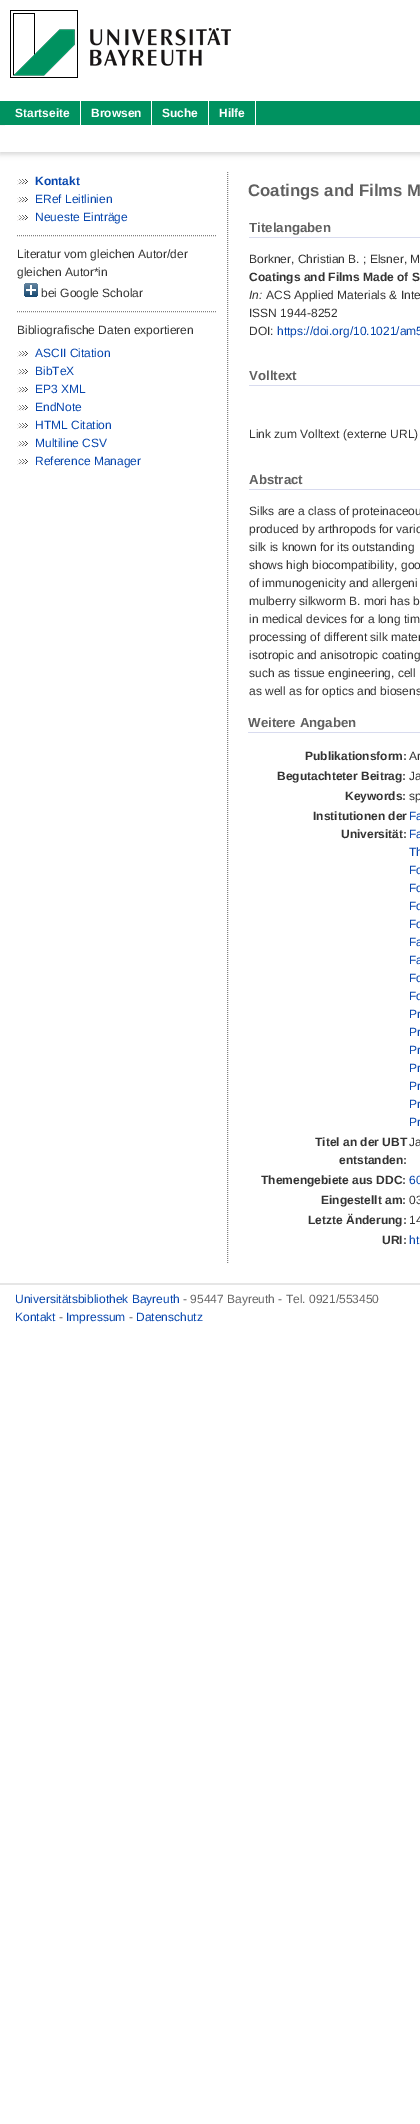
%!PS
<< /PageSize [420 2124] /PageUsesTransparency true >> setpagedevice
/rgb { dup -16 bitshift 255 div exch dup -8 bitshift 255 and 255 div exch 255 and 255 div setrgbcolor } def
/font { [ exch dup neg 0 0 3 -1 roll 0 0 ] selectfont } def
/text { moveto show } def
/alpha { dup .setfillconstantalpha .setstrokeconstantalpha } def
/roundrect { 5 dict begin { /r /h /w /y /x } { exch def } forall
  x r add y moveto x w add y 2 copy h add r arct x w add y h add x 1 index r arct
  x y h add x y r arct x y 2 copy exch w add exch r arct closepath end } def
/shadow { 12 dict begin { /a /b /q /h /w /y /x } { exch def } forall gsave /was 0 def
  9 -2 -9 { dup b mul 4 div /e exch def 1 sub .425 mul 2.718 exch exp 1 add a .99 .min exch div /now exch def
    1 1 now sub 1 was sub div sub alpha /was now def
    w h .min e 2 mul add 0 gt { x e sub y e sub w e 2 mul add h e 2 mul add
      q e add b .6 mul add w h .min 2 div e add .min 0 .max roundrect fill } if } for grestore end } def
/picture { 5 dict begin { /h /w /y /x /name } { exch def } forall
  gsave x y translate w h scale
  w h 8 [w 0 0 h 0 0] name (r) file false 3 colorimage grestore end } def
0 .pushpdf14devicefilter
0 2124 translate 1 -1 scale
4 setmiterlimit
/s1 { /LiberationSans-Bold 12 font 16#FFFFFF rgb } def
/s2 { /LiberationSans-Bold 12 font 16#0645AD rgb } def
/s3 { /LiberationSans-Regular 12 font 16#0645AD rgb } def
/s4 { /LiberationSans-Regular 12 font 16#333333 rgb } def
/s5 { /LiberationSans-Bold 16.75 font 16#606060 rgb } def
/s6 { /LiberationSans-Bold 13.25 font 16#606060 rgb } def
/s7 { /LiberationSans-Bold 12 font 16#333333 rgb } def
/s8 { /LiberationSans-Italic 12 font 16#333333 rgb } def
/s9 { /LiberationSans-Regular 12 font 16#666666 rgb } def
16#FFFFFF rgb
0 0 420 2124 rectfill
(pic1.raw) 10 10 221 68 picture
16#009260 rgb
0 101 420 24 rectfill
gsave
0 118 moveto 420 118 lineto 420 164 lineto 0 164 lineto closepath 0 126 moveto 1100 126 lineto 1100 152 lineto 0 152 lineto closepath eoclip newpath
16#646464 rgb
0 128 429 26 0 3 0.3 shadow
grestore
5 124 250 1 rectfill
16#FFFFFF rgb
5 125 251 1 rectfill
80 101 1 24 rectfill
s1
(Startseite) 15 117 text
151 101 1 24 rectfill
(Browsen) 91 117 text
208 101 1 24 rectfill
(Suche) 162 117 text
255 101 1 24 rectfill
(Hilfe) 219 117 text
(pic2.raw) 17 179 11 6 picture
s2
(Kontakt) 35 185 text
(pic2.raw) 17 197 11 6 picture
s3
(ERef Leitlinien) 35 203 text
(pic2.raw) 17 215 11 6 picture
(Neueste Einträge) 35 221 text
16#808080 rgb
[1 1] 0 setdash
17 235.5 moveto 217 235.5 lineto stroke
s4
(Literatur vom gleichen Autor/der) 17 258 text
(gleichen Autor*in) 17 276 text
(pic3.raw) 24 283 14 14 picture
(bei Google Scholar) 41 297 text
16#808080 rgb
17 311.5 moveto 217 311.5 lineto stroke
s4
(Bibliografische Daten exportieren) 17 334 text
(pic2.raw) 17 351 11 6 picture
s3
(ASCII Citation) 35 357 text
(pic2.raw) 17 369 11 6 picture
(BibTeX) 35 375 text
(pic2.raw) 17 387 11 6 picture
(EP3 XML) 35 393 text
(pic2.raw) 17 405 11 6 picture
(EndNote) 35 411 text
(pic2.raw) 17 423 11 6 picture
(HTML Citation) 35 429 text
(pic2.raw) 17 441 11 6 picture
(Multiline CSV) 35 447 text
(pic2.raw) 17 459 11 6 picture
(Reference Manager) 35 465 text
16#808080 rgb
227.5 172 moveto 227.5 1263 lineto stroke
s5
(Coatings and Films M) 248 196 text
16#D8DBEF rgb
249 237 171 1 rectfill
s6
(Titelangaben) 249 232 text
s4
(Borkner, Christian B. ; Elsner, M) 249 263 text
s7
(Coatings and Films Made of S) 249 281 text
s8
(In:) 249 299 text
s4
(ACS Applied Materials & Inte) 266 299 text
(ISSN 1944-8252) 249 317 text
(DOI:) 249 335 text
s3
(https://doi.org/10.1021/am5) 277 335 text
16#D8DBEF rgb
249 385 171 1 rectfill
s6
(Volltext) 249 380 text
s4
(Link zum Volltext \(externe URL\)) 249 438 text
16#D8DBEF rgb
249 489 171 1 rectfill
s6
(Abstract) 249 484 text
s4
(Silks are a class of proteinaceou) 249 515 text
(produced by arthropods for vario) 249 533 text
(silk is known for its outstanding) 249 551 text
(shows high biocompatibility, goo) 249 569 text
(of immunogenicity and allergeni) 249 587 text
(mulberry silkworm B. mori has b) 249 605 text
(in medical devices for a long tim) 249 623 text
(processing of different silk mater) 249 641 text
(isotropic and anisotropic coating) 249 659 text
(such as tissue engineering, cell) 249 677 text
(as well as for optics and biosens) 249 695 text
16#D8DBEF rgb
248 732 172 1 rectfill
s6
(Weitere Angaben) 248 727 text
s7
(Publikationsform:) 305 760 text
s4
(Ar) 409 760 text
s7
(Begutachteter Beitrag:) 277 780 text
s4
(Ja) 409 780 text
s7
(Keywords:) 345 800 text
s4
(sp) 409 800 text
s7
(Institutionen der) 313 820 text
(Universität:) 341 838 text
s3
(Fa) 409 820 text
(Fa) 409 838 text
(Th) 409 856 text
(Fo) 409 874 text
(Fo) 409 892 text
(Fo) 409 910 text
(Fo) 409 928 text
(Fa) 409 946 text
(Fa) 409 964 text
(Fo) 409 982 text
(Fo) 409 1000 text
(Pr) 409 1018 text
(Pr) 409 1036 text
(Pr) 409 1054 text
(Pr) 409 1072 text
(Pr) 409 1090 text
(Pr) 409 1108 text
(Pr) 409 1126 text
s7
(Titel an der UBT) 315 1146 text
(entstanden:) 339 1164 text
s4
(Ja) 409 1146 text
s7
(Themengebiete aus DDC:) 261 1184 text
s3
(60) 409 1184 text
s7
(Eingestellt am:) 321 1204 text
s4
(03) 409 1204 text
s7
(Letzte Änderung:) 308 1224 text
s4
(14) 409 1224 text
s7
(URI:) 382 1244 text
s3
(ht) 409 1244 text
16#E6E6E6 rgb
0 1283 420 2 rectfill
s3
(Universitätsbibliothek Bayreuth) 15 1303 text
s9
(- 95447 Bayreuth - Tel. 0921/553450) 183 1303 text
s3
(Kontakt) 15 1321 text
s9
(-) 59 1321 text
s3
(Impressum) 66 1321 text
s9
(-) 129 1321 text
s3
(Datenschutz) 136 1321 text
.poppdf14devicefilter showpage
